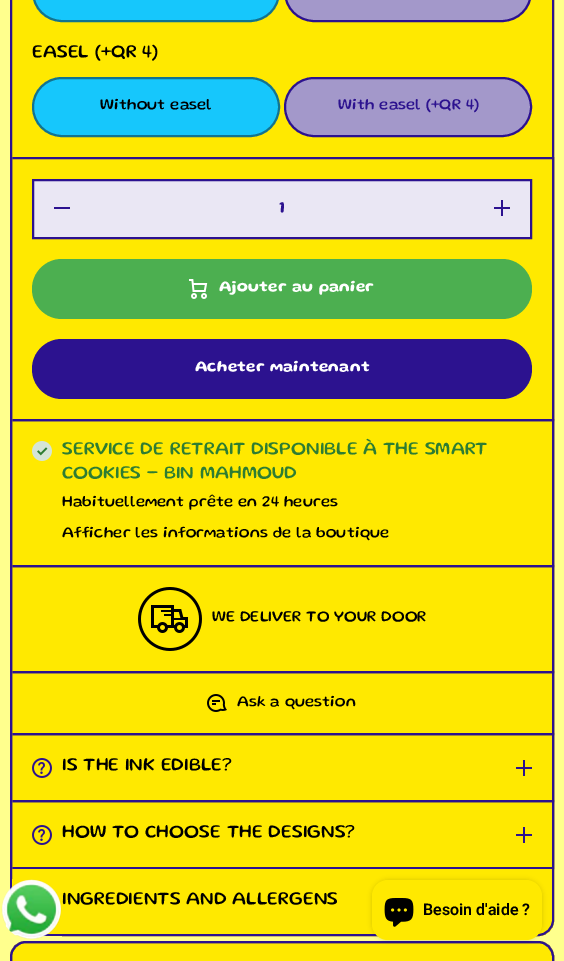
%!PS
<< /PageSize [564 961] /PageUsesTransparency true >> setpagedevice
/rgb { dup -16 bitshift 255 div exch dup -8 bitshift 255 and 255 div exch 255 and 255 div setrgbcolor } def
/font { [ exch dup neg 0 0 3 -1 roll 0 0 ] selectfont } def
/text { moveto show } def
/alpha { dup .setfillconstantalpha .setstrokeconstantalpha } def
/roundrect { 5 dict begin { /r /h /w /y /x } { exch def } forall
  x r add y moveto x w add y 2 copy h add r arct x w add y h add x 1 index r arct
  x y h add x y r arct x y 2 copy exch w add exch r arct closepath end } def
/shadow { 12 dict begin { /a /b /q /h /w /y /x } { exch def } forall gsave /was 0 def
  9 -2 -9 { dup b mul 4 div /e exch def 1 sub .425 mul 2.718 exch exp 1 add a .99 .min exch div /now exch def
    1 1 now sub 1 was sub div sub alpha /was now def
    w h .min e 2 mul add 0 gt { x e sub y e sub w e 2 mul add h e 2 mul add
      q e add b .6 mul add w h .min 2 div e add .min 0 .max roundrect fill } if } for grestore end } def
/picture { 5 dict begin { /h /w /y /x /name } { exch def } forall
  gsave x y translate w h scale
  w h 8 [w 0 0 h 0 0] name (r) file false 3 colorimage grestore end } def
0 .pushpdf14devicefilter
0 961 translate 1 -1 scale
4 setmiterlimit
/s1 { /Gluten-Regular 19 font 16#000000 rgb } def
/s2 { /Gluten-Regular 16 font 16#000000 rgb } def
/s3 { /Gluten-Regular 16 font 16#2C128F rgb } def
/s4 { /Gluten-SemiBold 16 font 16#2C128F rgb } def
/s5 { /Gluten-SemiBold 16 font 16#FFFFFF rgb } def
/s6 { /Gluten-Regular 19 font 16#2E7D32 rgb } def
/s7 { /Roboto-SemiBold 16 font 16#000000 rgb } def
16#FFFF8D rgb
0 0 564 961 rectfill
16#FFE900 rgb
10 -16 544 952 16 roundrect fill
16#16C7FC rgb
33 -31 246 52 29 roundrect gsave fill grestore
16#12738F rgb
2 setlinewidth
stroke
16#A398CA rgb
285 -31 246 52 29 roundrect gsave fill grestore
16#2C128F rgb
stroke
16#16C7FC rgb
33 78 246 58 29 roundrect gsave fill grestore
16#12738F rgb
stroke
16#A398CA rgb
285 78 246 58 29 roundrect gsave fill grestore
16#2C128F rgb
stroke
11 158 542 262 rectstroke
16#EAE7F4 rgb
33 180 moveto 531 180 lineto 531 238 lineto 33 238 lineto closepath gsave fill grestore
16#2C128F rgb
stroke
54 207 16 2 rectfill
(pic2.raw) 494 200 16 16 picture
16#4CAF50 rgb
32 259 500 60 30 roundrect fill
(pic3.raw) 189 279 19 20 picture
16#2C128F rgb
32 339 500 60 30 roundrect fill
11 420 542 146 rectstroke
(pic4.raw) 32 441 20 20 picture
11 566 542 106 rectstroke
(pic5.raw) 138 587 64 64 picture
11 672 542 62 rectstroke
(pic6.raw) 207 694 20 18 picture
11 734 542 67 rectstroke
(pic7.raw) 32 758 20 20 picture
516 767 16 2 rectfill
523 760 2 16 rectfill
11 801 542 67 rectstroke
(pic7.raw) 32 825 20 20 picture
516 834 16 2 rectfill
523 827 2 16 rectfill
16#FFE900 rgb
10 867 moveto 554 867 lineto 554 920 lineto 554 929 547 936 538 936 curveto 26 936 lineto 17 936 10 929 10 920 curveto closepath fill
16#2C128F rgb
12 869 moveto 552 869 lineto 552 928 lineto 553 925 554 923 554 920 curveto 554 867 lineto 10 867 lineto 10 920 lineto 10 923 11 925 12 928 curveto closepath 538 936 moveto 541 936 543 935 546 934 curveto 18 934 lineto 21 935 23 936 26 936 curveto closepath eofill
16#FFE900 rgb
11 -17 542 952 15 roundrect stroke
16#2C128F rgb
11 -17 542 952 15 roundrect stroke
(pic1.raw) 1 879 61 60 picture
s1
(EASEL \(+QR 4\)) 32 57 text
s2
(Without easel) 100 109 text
s3
(With easel \(+QR 4\)) 338 109 text
s4
(1) 279 212 text
s5
(Ajouter au panier) 219 291 text
(Acheter maintenant) 195 371 text
s6
(SERVICE DE RETRAIT DISPONIBLE À THE SMART) 62 454 text
(COOKIES - BIN MAHMOUD) 62 478 text
s2
(Habituellement prête en 24 heures) 62 506 text
(Afficher les informations de la boutique) 62 537 text
(WE DELIVER TO YOUR DOOR) 212 621 text
(Ask a question) 237 706 text
s1
(IS THE INK EDIBLE?) 62 770 text
(HOW TO CHOOSE THE DESIGNS?) 62 837 text
(INGREDIENTS AND ALLERGENS) 62 904 text
16#FFE900 rgb
26 942 moveto 538 942 lineto 546.5 942 553 948.5 553 957 curveto 553 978 lineto 11 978 lineto 11 957 lineto 11 948.5 17.5 942 26 942 curveto closepath gsave fill grestore
16#2C128F rgb
stroke
16#FFE900 rgb
11 942 542 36 15 roundrect stroke
16#2C128F rgb
11 942 542 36 15 roundrect stroke
16#000000 rgb
372 880 170 60 16 2.5 0.15 shadow
16#FFE900 rgb
372 880 170 60 16 roundrect fill
(pic8.raw) 384 898 30 29 picture
s7
(Besoin d'aide ?) 423 915 text
.poppdf14devicefilter showpage
